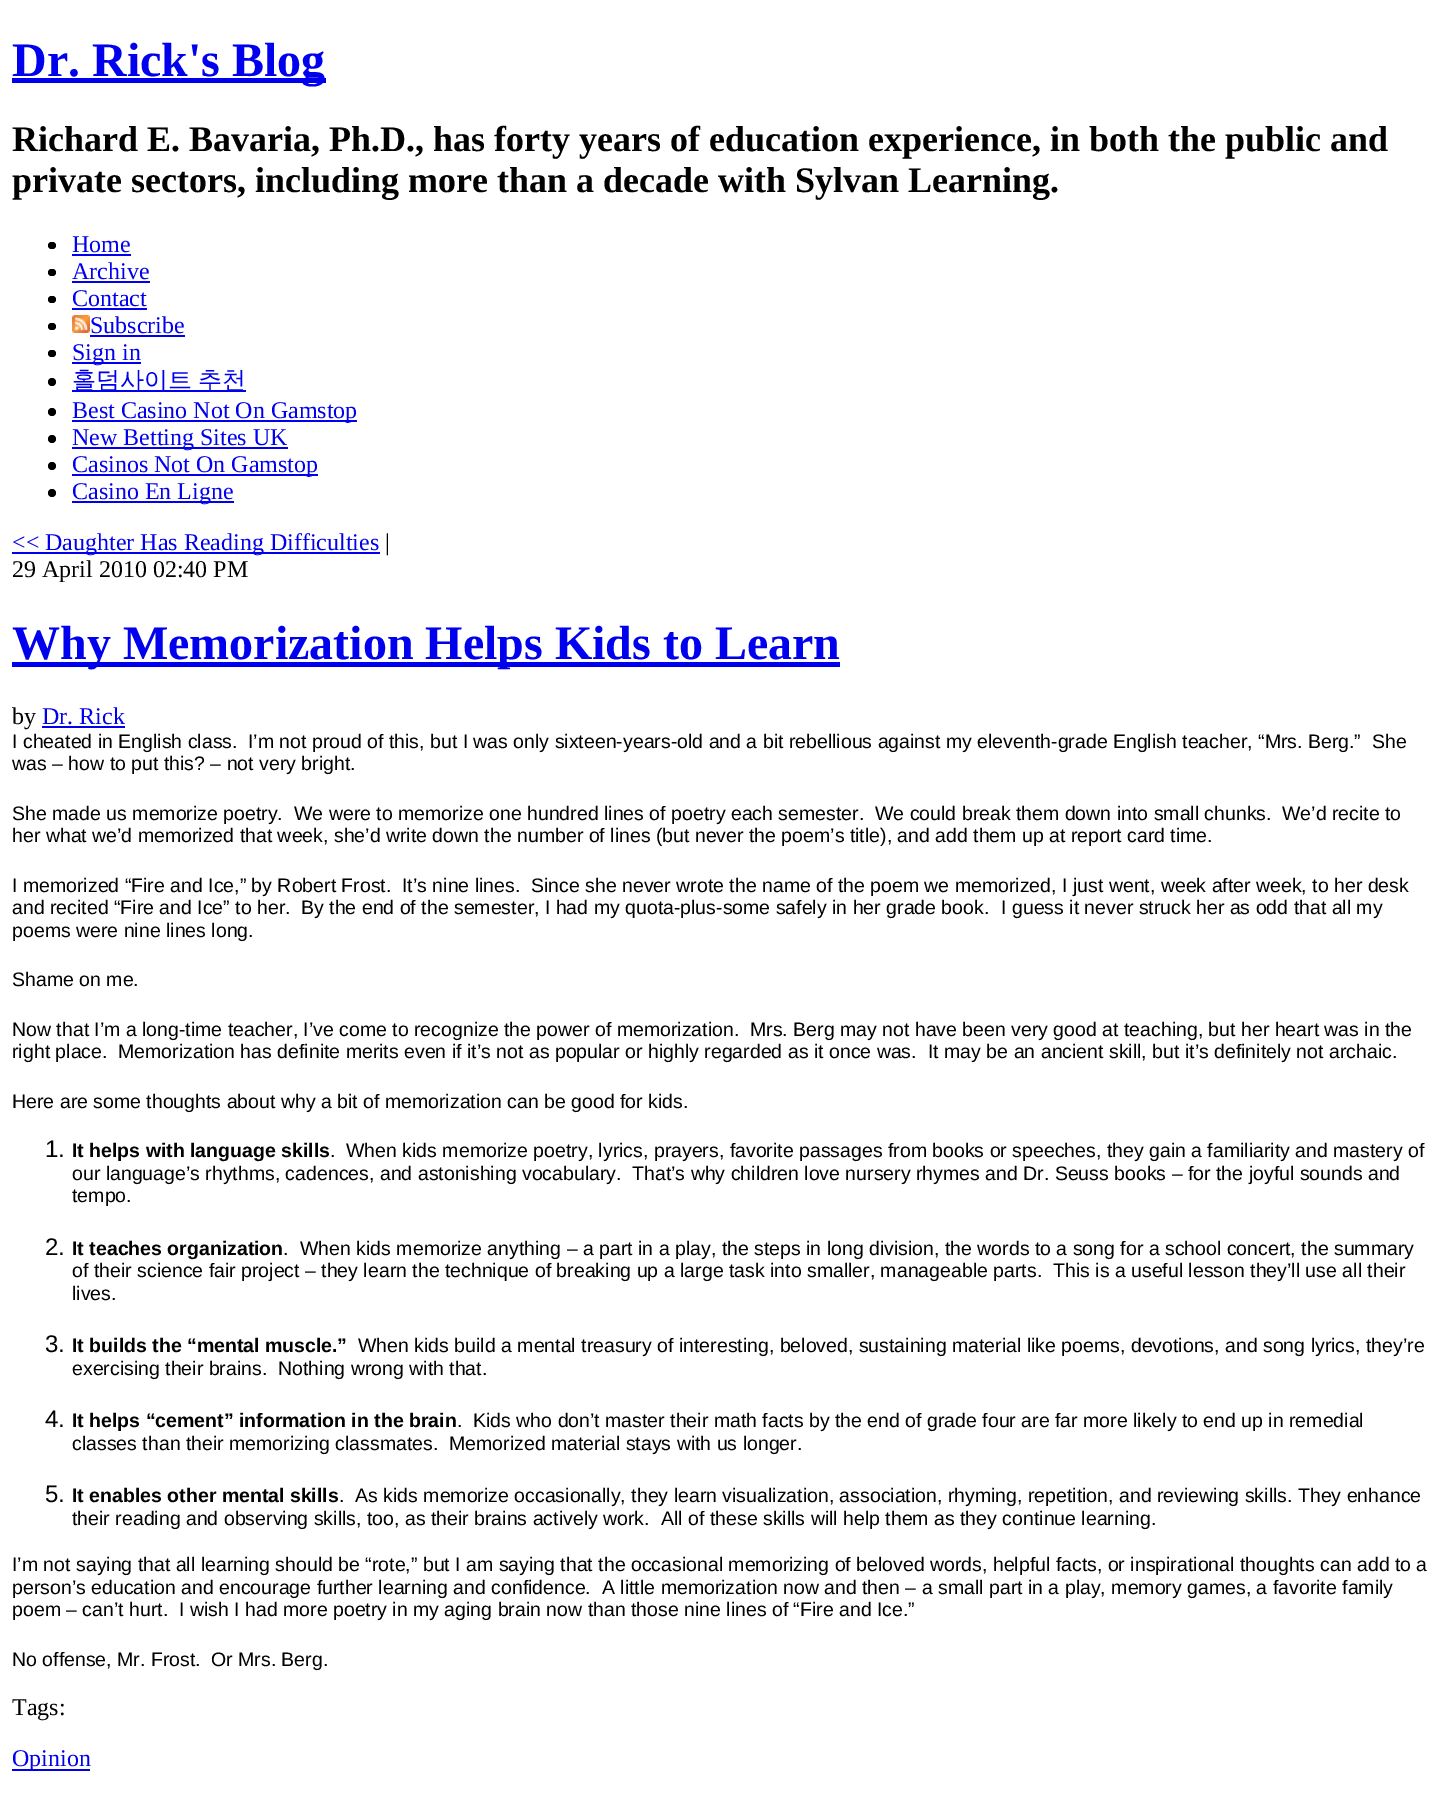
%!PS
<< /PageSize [1444 1813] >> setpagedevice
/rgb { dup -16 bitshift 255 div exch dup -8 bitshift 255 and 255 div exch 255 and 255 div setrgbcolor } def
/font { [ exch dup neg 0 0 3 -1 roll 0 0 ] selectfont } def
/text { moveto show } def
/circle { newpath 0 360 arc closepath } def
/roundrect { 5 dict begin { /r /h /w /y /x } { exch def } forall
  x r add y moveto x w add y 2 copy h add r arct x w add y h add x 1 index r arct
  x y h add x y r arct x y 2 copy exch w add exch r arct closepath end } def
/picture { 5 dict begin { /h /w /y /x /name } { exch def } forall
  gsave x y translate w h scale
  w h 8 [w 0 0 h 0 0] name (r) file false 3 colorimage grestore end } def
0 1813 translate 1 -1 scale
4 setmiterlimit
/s1 { /LiberationSerif-Bold 48 font 16#0000EE rgb } def
/s2 { /LiberationSerif-Bold 36 font 16#000000 rgb } def
/s3 { /LiberationSerif-Regular 24 font 16#0000EE rgb } def
/s4 { /LiberationSerif-Regular 24 font 16#000000 rgb } def
/s5 { /LiberationSans-Regular 19.5 font 16#000000 rgb } def
/s6 { /LiberationSans-Regular 24 font 16#000000 rgb } def
/s7 { /LiberationSans-Bold 19.5 font 16#000000 rgb } def
16#FFFFFF rgb
0 0 1444 1813 rectfill
16#0000EE rgb
12 78 314 5 rectfill
s1
(Dr. Rick's Blog) 12 76 text
s2
(Richard E. Bavaria, Ph.D., has forty years of education experience, in both the public and) 12 151 text
(private sectors, including more than a decade with Sylvan Learning.) 12 192 text
48 242 8 7 3.5 roundrect fill
s3
(Home) 72 252 text
72 254 59 2 rectfill
16#000000 rgb
48 269 8 7 3.5 roundrect fill
s3
(Archive) 72 279 text
72 281 78 2 rectfill
16#000000 rgb
48 296 8 7 3.5 roundrect fill
s3
(Contact) 72 306 text
72 308 75 2 rectfill
16#000000 rgb
48 323 8 7 3.5 roundrect fill
(pic1.raw) 72 315 18 18 picture
s3
(Subscribe) 90 333 text
90 335 95 2 rectfill
16#000000 rgb
48 350 8 7 3.5 roundrect fill
16#0000EE rgb
72 362 69 2 rectfill
(Sign in) 72 360 text
16#000000 rgb
52 382 4 circle fill
16#0000EE rgb
72 390 174 2 rectfill
/WenQuanYiZenHei-Medium 24 font
72 388 moveto -1 0 32 (홀덤사이트 추천) widthshow
16#000000 rgb
52 412 4 circle fill
16#0000EE rgb
72 420 285 2 rectfill
s3
(Best Casino Not On Gamstop) 72 418 text
16#000000 rgb
52 439 4 circle fill
16#0000EE rgb
72 447 216 2 rectfill
(New Betting Sites UK) 72 445 text
16#000000 rgb
52 466 4 circle fill
16#0000EE rgb
72 474 246 2 rectfill
(Casinos Not On Gamstop) 72 472 text
16#000000 rgb
52 493 4 circle fill
16#0000EE rgb
72 501 162 2 rectfill
(Casino En Ligne) 72 499 text
12 552 368 2 rectfill
(<< Daughter Has Reading Difficulties) 12 550 text
s4
(|) 385 550 text
(29 April 2010 02:40 PM) 12 577 text
16#0000EE rgb
12 662 828 5 rectfill
s1
(Why Memorization Helps Kids to Learn) 12 659 text
s4
(by) 12 724 text
s3
(Dr. Rick) 42 724 text
42 726 83 2 rectfill
s5
(I cheated in English class.) 12 748 text
(I’m not proud of this, but I was only sixteen-years-old and a bit rebellious against my eleventh-grade English teacher, “Mrs. Berg.”) 248 748 text
(She) 1372 748 text
(was – how to put this? – not very bright.) 12 770 text
(She made us memorize poetry.) 12 820 text
(We were to memorize one hundred lines of poetry each semester.) 294 820 text
(We could break them down into small chunks.) 875 820 text
(We’d recite to) 1282 820 text
(her what we’d memorized that week, she’d write down the number of lines \(but never the poem’s title\), and add them up at report card time.) 12 842 text
(I memorized “Fire and Ice,” by Robert Frost.) 12 892 text
(It’s nine lines.) 402 892 text
(Since she never wrote the name of the poem we memorized, I just went, week after week, to her desk) 531 892 text
(and recited “Fire and Ice” to her.) 12 914 text
(By the end of the semester, I had my quota-plus-some safely in her grade book.) 301 914 text
(I guess it never struck her as odd that all my) 1001 914 text
(poems were nine lines long.) 12 937 text
(Shame on me.) 12 986 text
(Now that I’m a long-time teacher, I’ve come to recognize the power of memorization.) 12 1036 text
(Mrs. Berg may not have been very good at teaching, but her heart was in the) 750 1036 text
(right place.) 12 1058 text
(Memorization has definite merits even if it’s not as popular or highly regarded as it once was.) 118 1058 text
(It may be an ancient skill, but it’s definitely not archaic.) 928 1058 text
(Here are some thoughts about why a bit of memorization can be good for kids.) 12 1108 text
s6
(1.) 45 1157 text
s7
(It helps with language skills) 72 1157 text
s5
(.) 330 1157 text
(When kids memorize poetry, lyrics, prayers, favorite passages from books or speeches, they gain a familiarity and mastery of) 346 1157 text
(our language’s rhythms, cadences, and astonishing vocabulary.) 72 1180 text
(That’s why children love nursery rhymes and Dr. Seuss books – for the joyful sounds and) 632 1180 text
(tempo.) 72 1202 text
s6
(2.) 45 1255 text
s7
(It teaches organization) 72 1255 text
s5
(.) 283 1255 text
(When kids memorize anything – a part in a play, the steps in long division, the words to a song for a school concert, the summary) 300 1255 text
(of their science fair project – they learn the technique of breaking up a large task into smaller, manageable parts.) 72 1277 text
(This is a useful lesson they’ll use all their) 1053 1277 text
(lives.) 72 1300 text
s6
(3.) 45 1352 text
s7
(It builds the “mental muscle.”) 72 1352 text
s5
(When kids build a mental treasury of interesting, beloved, sustaining material like poems, devotions, and song lyrics, they’re) 358 1352 text
(exercising their brains.) 72 1375 text
(Nothing wrong with that.) 278 1375 text
s6
(4.) 45 1427 text
s7
(It helps “cement” information in the brain) 72 1427 text
s5
(.) 457 1427 text
(Kids who don’t master their math facts by the end of grade four are far more likely to end up in remedial) 473 1427 text
(classes than their memorizing classmates.) 72 1450 text
(Memorized material stays with us longer.) 449 1450 text
s6
(5.) 45 1502 text
s7
(It enables other mental skills) 72 1502 text
s5
(.) 339 1502 text
(As kids memorize occasionally, they learn visualization, association, rhyming, repetition, and reviewing skills. They enhance) 355 1502 text
(their reading and observing skills, too, as their brains actively work.) 72 1525 text
(All of these skills will help them as they continue learning.) 661 1525 text
(I’m not saying that all learning should be “rote,” but I am saying that the occasional memorizing of beloved words, helpful facts, or inspirational thoughts can add to a) 12 1571 text
(person’s education and encourage further learning and confidence.) 12 1594 text
(A little memorization now and then – a small part in a play, memory games, a favorite family) 602 1594 text
(poem – can’t hurt.) 12 1616 text
(I wish I had more poetry in my aging brain now than those nine lines of “Fire and Ice.”) 179 1616 text
(No offense, Mr. Frost.) 12 1666 text
(Or Mrs. Berg.) 211 1666 text
s4
(Tags:) 12 1715 text
16#0000EE rgb
12 1769 78 2 rectfill
(Opinion) 12 1766 text
showpage
